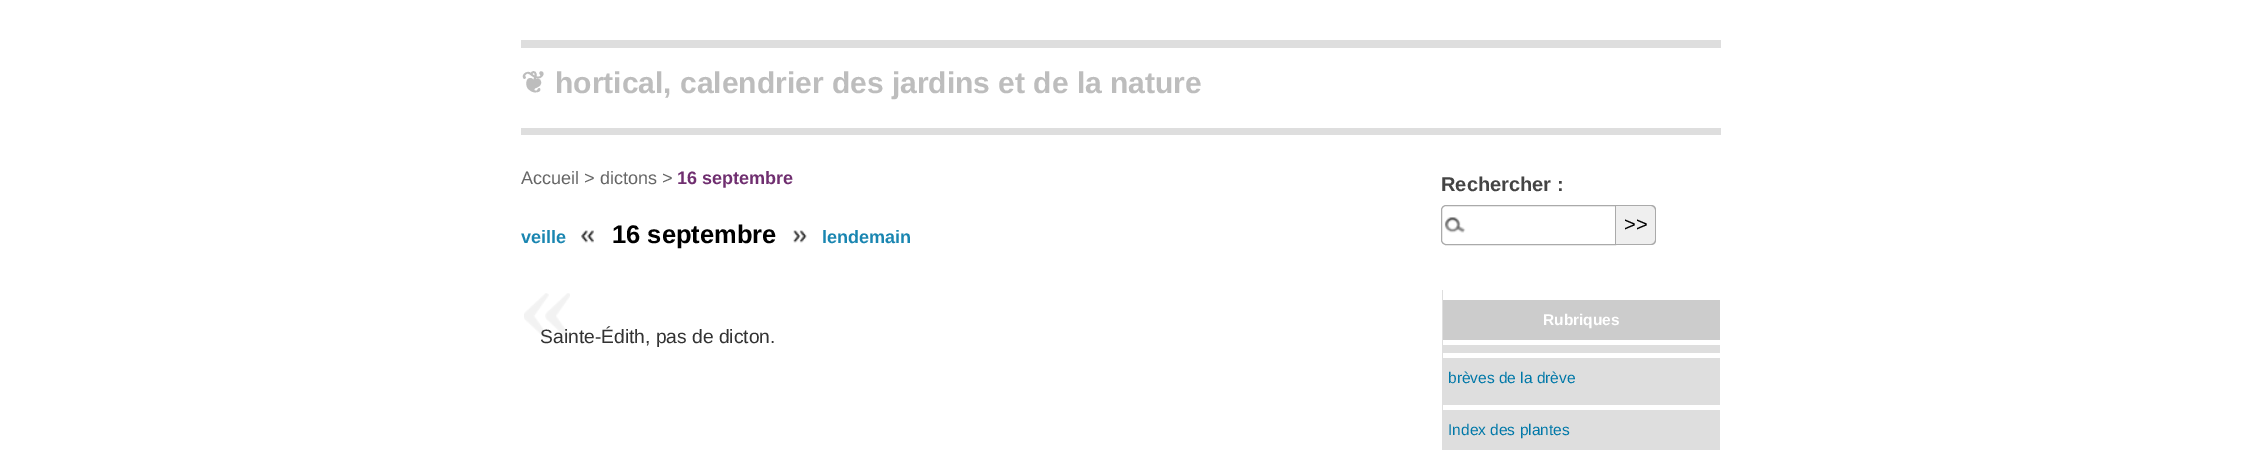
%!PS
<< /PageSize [2242 450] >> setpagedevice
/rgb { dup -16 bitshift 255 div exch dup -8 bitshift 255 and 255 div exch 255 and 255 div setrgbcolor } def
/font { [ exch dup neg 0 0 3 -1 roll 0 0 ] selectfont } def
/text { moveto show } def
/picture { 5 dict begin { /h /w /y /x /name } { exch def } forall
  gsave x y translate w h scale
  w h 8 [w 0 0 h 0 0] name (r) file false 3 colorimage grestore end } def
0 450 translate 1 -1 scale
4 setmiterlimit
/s1 { /DejaVuSans-Bold 30 font 16#BDBDBD rgb } def
/s2 { /LiberationSans-Bold 30 font 16#BDBDBD rgb } def
/s3 { /LiberationSans-Regular 18 font 16#666666 rgb } def
/s4 { /LiberationSans-Bold 18 font 16#702F70 rgb } def
/s5 { /LiberationSans-Bold 18 font 16#1A86B1 rgb } def
/s6 { /LiberationSans-Bold 25.5 font 16#000000 rgb } def
/s7 { /LiberationSans-Regular 19.25 font 16#333333 rgb } def
/s8 { /LiberationSans-Bold 20 font 16#444444 rgb } def
/s9 { /LiberationSans-Regular 20 font 16#000000 rgb } def
/s10 { /LiberationSans-Bold 15.5 font 16#FFFFFF rgb } def
/s11 { /LiberationSans-Regular 15.5 font 16#0078A8 rgb } def
16#FFFFFF rgb
0 0 2242 450 rectfill
16#DEDEDE rgb
521 40 1200 8 rectfill
521 128 1200 7 rectfill
s1
(❦) 521 93 text
s2
(hortical, calendrier des jardins et de la nature) 555 93 text
s3
(Accueil > dictons >) 521 184 text
s4
(16 septembre) 677 184 text
s5
(veille) 521 243 text
(pic1.raw) 581 230 13 13 picture
s6
(16 septembre) 612 243 text
(pic2.raw) 793 230 14 13 picture
s5
(lendemain) 822 243 text
(pic3.raw) 524 293 46 46 picture
s7
(Sainte-Édith, pas de dicton.) 540 343 text
s8
(Rechercher :) 1441 191 text
(pic4.raw) 1444 217 22 16 picture
16#AAAAAA rgb
1446 205.5 moveto 1615.5 205.5 lineto 1615.5 244.5 lineto 1446 244.5 lineto 1443.5 244.5 1441.5 242.5 1441.5 240 curveto 1441.5 210 lineto 1441.5 207.5 1443.5 205.5 1446 205.5 curveto closepath stroke
16#EFEFEF rgb
1616 205 moveto 1651 205 lineto 1654 205 1656 207 1656 210 curveto 1656 240 lineto 1656 243 1654 245 1651 245 curveto 1616 245 lineto closepath fill
16#AAAAAA rgb
1616 205 moveto 1651 205 lineto 1654 205 1656 207 1656 210 curveto 1656 240 lineto 1656 243 1654 245 1651 245 curveto 1616 245 lineto closepath 1616 206 moveto 1651 206 lineto 1653 206 1655 208 1655 210 curveto 1655 240 lineto 1655 242 1653 244 1651 244 curveto 1616 244 lineto closepath eofill
s9
(>>) 1624 231 text
16#DEDEDE rgb
1442 290 278 160 rectfill
16#FFFFFF rgb
1443 290 277 10 rectfill
16#CCCCCC rgb
1443 300 277 40 rectfill
16#FFFFFF rgb
1443 340 277 5 rectfill
s10
(Rubriques) 1543 325 text
1443 353 277 5 rectfill
s11
(brèves de la drève) 1448 383 text
16#FFFFFF rgb
1443 405 277 5 rectfill
s11
(Index des plantes) 1448 435 text
showpage
